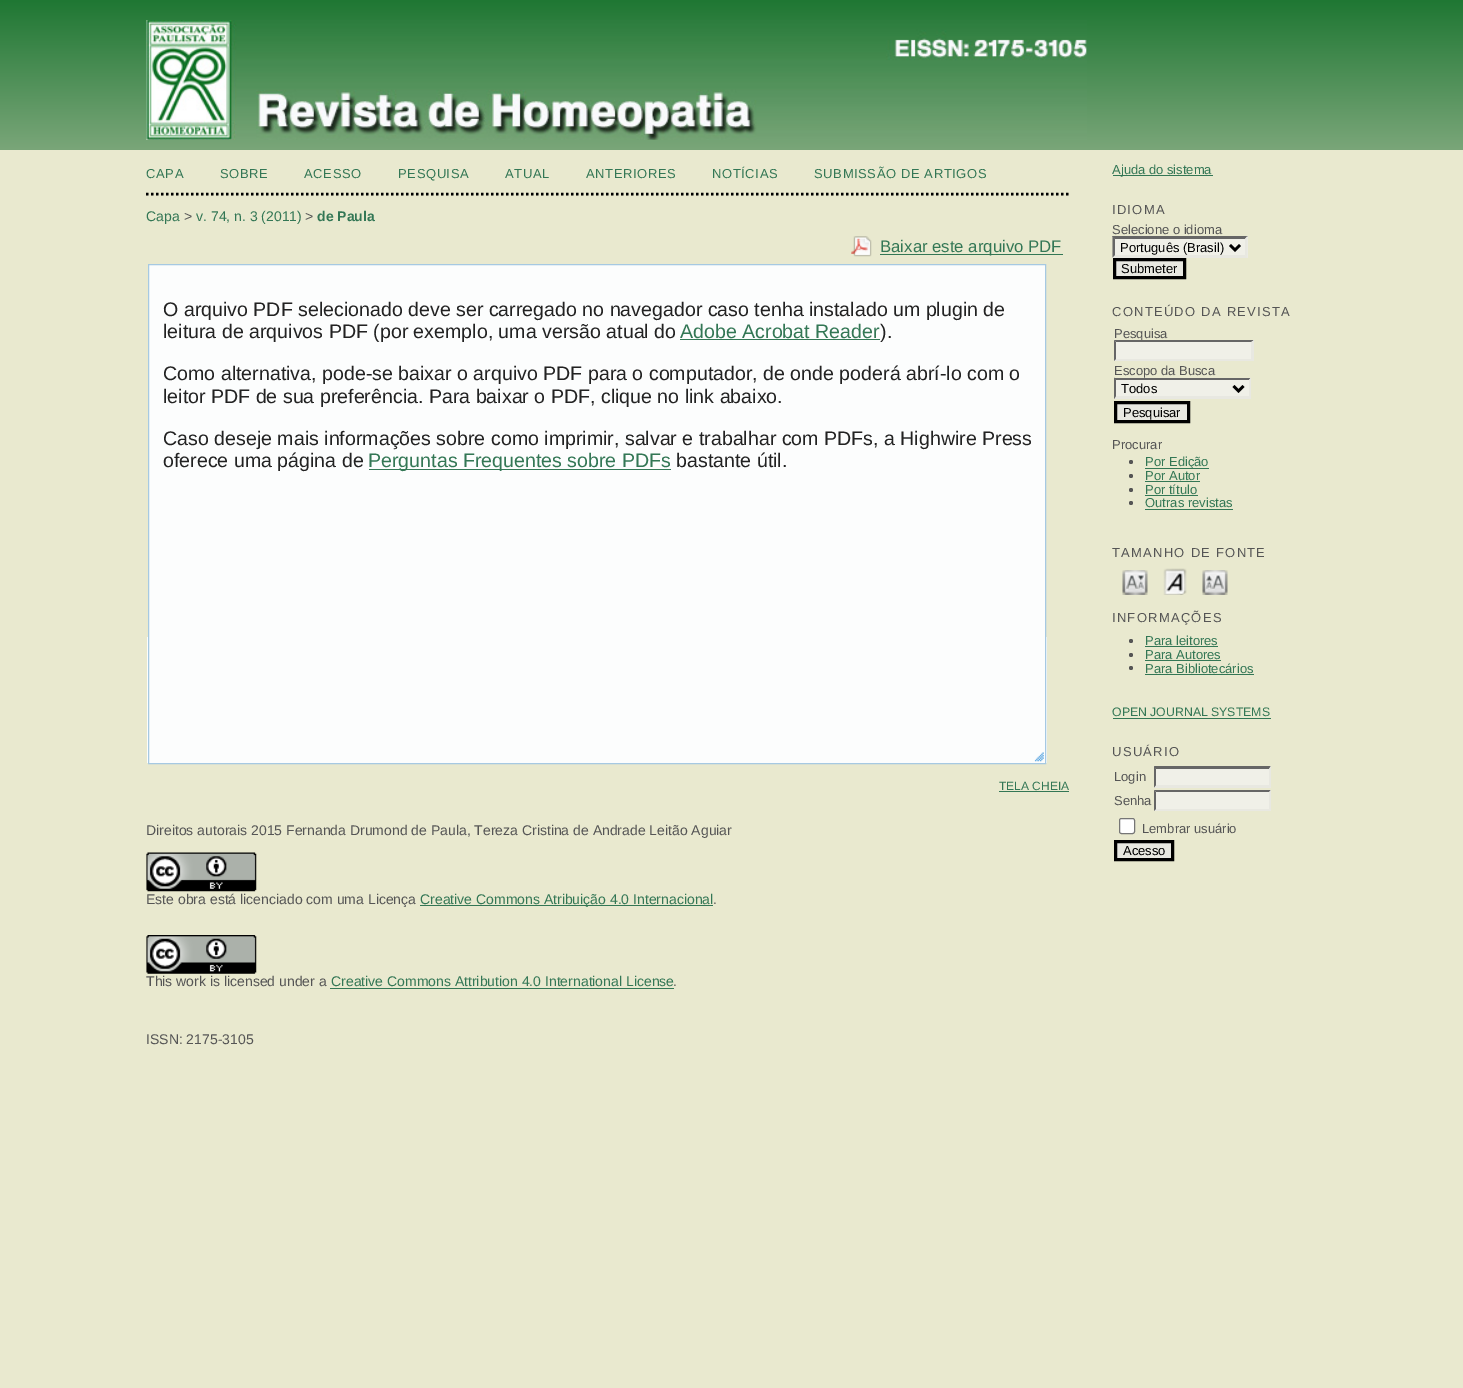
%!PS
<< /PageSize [1463 1388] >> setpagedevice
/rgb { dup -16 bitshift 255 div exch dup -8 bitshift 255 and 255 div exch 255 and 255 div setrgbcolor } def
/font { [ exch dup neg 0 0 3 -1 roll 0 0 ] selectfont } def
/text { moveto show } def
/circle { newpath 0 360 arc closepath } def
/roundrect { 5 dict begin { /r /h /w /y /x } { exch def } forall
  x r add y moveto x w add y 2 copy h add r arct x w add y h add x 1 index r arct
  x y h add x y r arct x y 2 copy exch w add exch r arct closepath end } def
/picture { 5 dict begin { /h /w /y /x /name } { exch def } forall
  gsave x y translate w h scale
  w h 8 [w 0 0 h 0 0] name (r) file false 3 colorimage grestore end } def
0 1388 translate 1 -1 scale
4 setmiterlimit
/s1 { /LiberationSans-Regular 14 font 16#337755 rgb } def
/s2 { /LiberationSans-Regular 14 font 16#555555 rgb } def
/s3 { /LiberationSans-Bold 14 font 16#337755 rgb } def
/s4 { /LiberationSans-Regular 16.75 font 16#337755 rgb } def
/s5 { /LiberationSans-Regular 19.6 font 16#222222 rgb } def
/s6 { /LiberationSans-Regular 19.6 font 16#337755 rgb } def
/s7 { /LiberationSans-Regular 12 font 16#337755 rgb } def
/s8 { /LiberationSans-Regular 13 font 16#337755 rgb } def
/s9 { /LiberationSans-Regular 13 font 16#555555 rgb } def
/s10 { /LiberationSans-Regular 13 font 16#000000 rgb } def
/s11 { /LiberationSans-Regular 12.3 font 16#337755 rgb } def
16#E9E9CF rgb
0 0 1463 1388 rectfill
gsave 0 0 moveto 1463 0 lineto 1463 150 lineto 0 150 lineto closepath clip newpath
<< /ShadingType 2 /ColorSpace /DeviceRGB /Coords [732 150 732 0] /Extend [true true] /Function << /FunctionType 2 /Domain [0 1] /C0 [0.478 0.651 0.475] /C1 [0.122 0.467 0.2] /N 1 >> >> shfill grestore
(pic1.raw) 146 20 941 120 picture
16#000000 rgb
2.5 setlinewidth
[2.5 2.5] 0 setdash
146 194 moveto 1069 194 lineto stroke
/LiberationSans-Regular 13 font
16#337755 rgb
146 178 moveto 0.6 0 (CAPA) ashow
220 178 moveto 0.6 0 (SOBRE) ashow
304 178 moveto 0.6 0 (ACESSO) ashow
398 178 moveto 0.6 0 (PESQUISA) ashow
505 178 moveto 0.6 0 (ATUAL) ashow
586 178 moveto 0.6 0 (ANTERIORES) ashow
712 178 moveto 0.6 0 (NOTÍCIAS) ashow
814 178 moveto 0.6 0 (SUBMISSÃO DE ARTIGOS) ashow
s1
(Capa) 146 221 text
s2
(>) 184 221 text
s1
(v. 74, n. 3 \(2011\)) 196 221 text
s2
(>) 305 221 text
s3
(de Paula) 317 221 text
(pic2.raw) 851 236 21 21 picture
880 254 183 1 rectfill
s4
(Baixar este arquivo PDF) 880 252 text
16#FCFDFD rgb
149 265 896 372 rectfill
147 637 900 126 rectfill
16#A6C9E2 rgb
1 setlinewidth
[] 0 setdash
148.5 264.5 897 499 rectstroke
s5
(O arquivo PDF selecionado deve ser carregado no navegador caso tenha instalado um plugin de) 163 316 text
(leitura de arquivos PDF \(por exemplo, uma versão atual do) 163 338 text
s6
(Adobe Acrobat Reader) 680 338 text
680 339 200 1 rectfill
s5
(\).) 880 338 text
(Como alternativa, pode-se baixar o arquivo PDF para o computador, de onde poderá abrí-lo com o) 163 380 text
(leitor PDF de sua preferência. Para baixar o PDF, clique no link abaixo.) 163 403 text
(Caso deseje mais informações sobre como imprimir, salvar e trabalhar com PDFs, a Highwire Press) 163 445 text
(oferece uma página de) 163 467 text
16#337755 rgb
369 469 302 1 rectfill
(Perguntas Frequentes sobre PDFs) 368 467 text
s5
(bastante útil.) 676 467 text
(pic3.raw) 1034 752 10 10 picture
s7
(TELA CHEIA) 999 790 text
999 791 70 1 rectfill
s2
(Direitos autorais 2015 Fernanda Drumond de Paula, Tereza Cristina de Andrade Leitão Aguiar) 146 835 text
(pic4.raw) 146 852 111 40 picture
(Este obra está licenciado com uma Licença) 146 904 text
16#337755 rgb
420 905 293 1 rectfill
(Creative Commons Atribuição 4.0 Internacional) 420 904 text
s2
(.) 713 904 text
(pic5.raw) 146 935 111 39 picture
(This work is licensed under a) 146 986 text
s1
(Creative Commons Attribution 4.0 International License) 331 986 text
330 988 344 1 rectfill
s2
(.) 673 986 text
(ISSN: 2175-3105) 146 1044 text
16#337755 rgb
1113 175 100 1 rectfill
s8
(Ajuda do sistema) 1112 174 text
16#555555 rgb
1112 214 moveto 1.25 0 (IDIOMA) ashow
(Selecione o idioma) 1112 234 text
16#F0F0E8 rgb
1113 236 135 22 rectfill
16#666666 rgb
1112 236 moveto 1248 236 lineto 1245 239 lineto 1115 239 lineto closepath fill
16#E8E8E1 rgb
1247.5 236 moveto 1247.5 257.5 lineto 1245 255 lineto 1245 239 lineto closepath fill
1248 258 moveto 1112 258 lineto 1115 255 lineto 1245 255 lineto closepath fill
16#666666 rgb
1112.5 257.5 moveto 1112.5 236 lineto 1115 239 lineto 1115 255 lineto closepath fill
16#000000 rgb
2.5 setlinewidth
1230 245 moveto 1235 250 lineto 1240 245 lineto stroke
(Português \(Brasil\)) 1120 252 text
16#E8E8E1 rgb
1114.5 259.5 moveto 1184.5 259.5 lineto 1184.5 277.5 lineto 1114.5 277.5 lineto closepath gsave fill grestore
16#000000 rgb
3 setlinewidth
stroke
(Submeter) 1121 273 text
16#555555 rgb
1112 316 moveto 1.25 0 (CONTEÚDO DA REVISTA) ashow
(Pesquisa) 1114 338 text
16#F0F0E8 rgb
1114 340 140 21 rectfill
16#666666 rgb
1114 340 moveto 1254 340 lineto 1251 342 lineto 1116 342 lineto closepath fill
16#E8E8E1 rgb
1254 340 moveto 1254 361 lineto 1251 359 lineto 1251 342.5 lineto closepath fill
1254 361 moveto 1114 361 lineto 1116 359 lineto 1251 359 lineto closepath fill
16#666666 rgb
1114 361 moveto 1114 340 lineto 1116 342.5 lineto 1116 359 lineto closepath fill
s9
(Escopo da Busca) 1114 375 text
16#F0F0E8 rgb
1114 378 137 21 rectfill
16#666666 rgb
1114 378 moveto 1251 378 lineto 1249 380 lineto 1116 380 lineto closepath fill
16#E8E8E1 rgb
1251 377.5 moveto 1251 399 lineto 1249 396 lineto 1249 380 lineto closepath fill
1251 399 moveto 1114 399 lineto 1116 396 lineto 1249 396 lineto closepath fill
16#666666 rgb
1114 399 moveto 1114 377.5 lineto 1116 380 lineto 1116 396 lineto closepath fill
16#000000 rgb
2.5 setlinewidth
1233.5 386 moveto 1238.5 391 lineto 1243.5 386 lineto stroke
(Todos) 1121 393 text
16#E8E8E1 rgb
1115.5 402.5 moveto 1188.5 402.5 lineto 1188.5 421.5 lineto 1115.5 421.5 lineto closepath gsave fill grestore
16#000000 rgb
3 setlinewidth
stroke
(Pesquisar) 1123 417 text
s9
(Procurar) 1112 449 text
1131 462 2 circle fill
16#337755 rgb
1145 468 64 1 rectfill
(Por Edição) 1145 466 text
16#555555 rgb
1131 476 2 circle fill
s8
(Por Autor) 1145 480 text
1145 481 55 1 rectfill
16#555555 rgb
1131 490 2 circle fill
s8
(Por título) 1145 494 text
1145 495 53 1 rectfill
16#555555 rgb
1131 503 2 circle fill
s8
(Outras revistas) 1145 507 text
1145 509 88 1 rectfill
16#555555 rgb
1112 557 moveto 1.25 0 (TAMANHO DE FONTE) ashow
(pic6.raw) 1122 570 26 25 picture
(pic7.raw) 1163 568 24 27 picture
(pic8.raw) 1202 570 26 25 picture
1112 622 moveto 1.25 0 (INFORMAÇÕES) ashow
1131 641 2 circle fill
s8
(Para leitores) 1145 645 text
1145 646 73 1 rectfill
16#555555 rgb
1131 655 2 circle fill
s8
(Para Autores) 1145 659 text
1145 660 76 1 rectfill
16#555555 rgb
1131 668 2 circle fill
s8
(Para Bibliotecários) 1145 673 text
1145 674 109 1 rectfill
s11
(OPEN JOURNAL SYSTEMS) 1112 716 text
1113 718 158 1 rectfill
/LiberationSans-Regular 13 font
16#555555 rgb
1112 756 moveto 1.25 0 (USUÁRIO) ashow
(Login) 1114 781 text
16#F0F0E8 rgb
1154 766 117 22 rectfill
16#666666 rgb
1154 766 moveto 1271 766 lineto 1269 769 lineto 1156 769 lineto closepath fill
16#E8E8E1 rgb
1271 766 moveto 1271 787.5 lineto 1269 785 lineto 1269 769 lineto closepath fill
1271 788 moveto 1154 788 lineto 1156 785 lineto 1269 785 lineto closepath fill
16#666666 rgb
1154 787.5 moveto 1154 766 lineto 1156 769 lineto 1156 785 lineto closepath fill
s9
(Senha) 1114 805 text
16#F0F0E8 rgb
1154 790 117 21 rectfill
16#666666 rgb
1154 790 moveto 1271 790 lineto 1269 792 lineto 1156 792 lineto closepath fill
16#E8E8E1 rgb
1271 790 moveto 1271 811 lineto 1269 809 lineto 1269 792.5 lineto closepath fill
1271 811 moveto 1154 811 lineto 1156 809 lineto 1269 809 lineto closepath fill
16#666666 rgb
1154 811 moveto 1154 790 lineto 1156 792.5 lineto 1156 809 lineto closepath fill
16#FFFFFF rgb
1119.5 818.5 15 15 2 roundrect gsave fill grestore
16#767676 rgb
1 setlinewidth
stroke
s9
(Lembrar usuário) 1142 833 text
16#E8E8E1 rgb
1115.5 841.5 moveto 1172.5 841.5 lineto 1172.5 859.5 lineto 1115.5 859.5 lineto closepath gsave fill grestore
16#000000 rgb
3 setlinewidth
stroke
(Acesso) 1123 855 text
showpage
